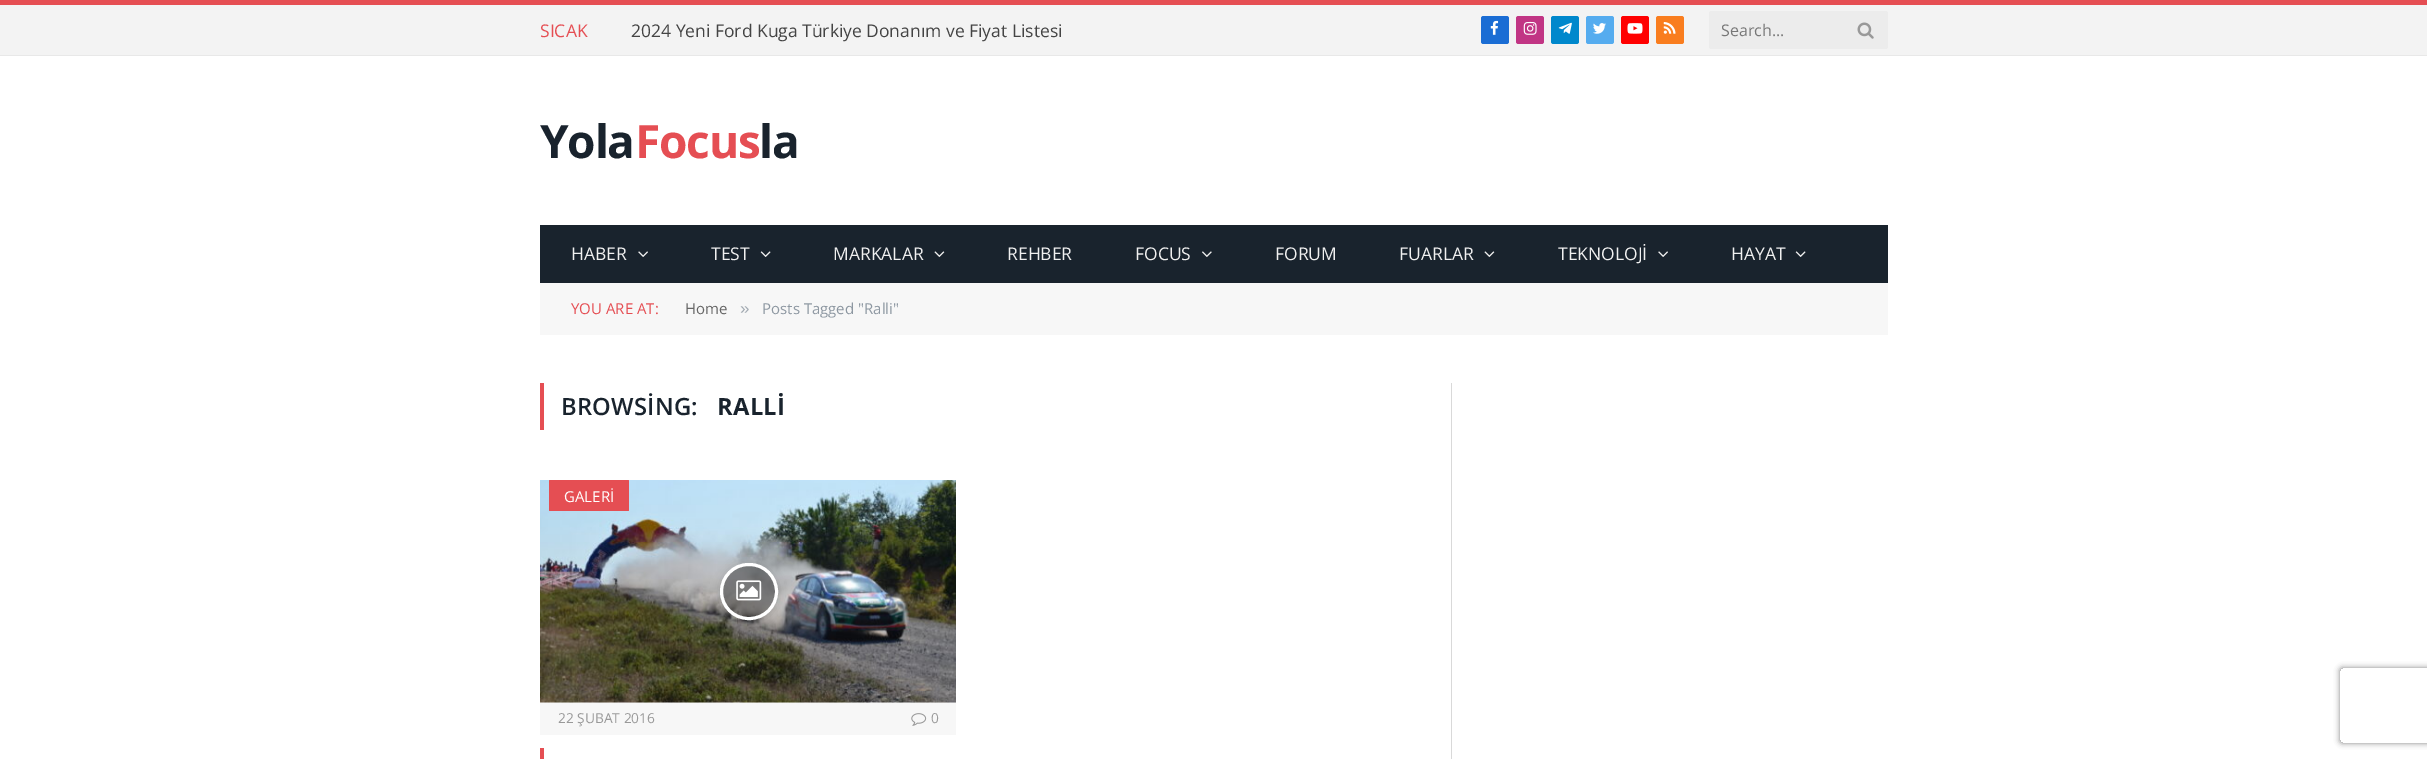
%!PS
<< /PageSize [2427 759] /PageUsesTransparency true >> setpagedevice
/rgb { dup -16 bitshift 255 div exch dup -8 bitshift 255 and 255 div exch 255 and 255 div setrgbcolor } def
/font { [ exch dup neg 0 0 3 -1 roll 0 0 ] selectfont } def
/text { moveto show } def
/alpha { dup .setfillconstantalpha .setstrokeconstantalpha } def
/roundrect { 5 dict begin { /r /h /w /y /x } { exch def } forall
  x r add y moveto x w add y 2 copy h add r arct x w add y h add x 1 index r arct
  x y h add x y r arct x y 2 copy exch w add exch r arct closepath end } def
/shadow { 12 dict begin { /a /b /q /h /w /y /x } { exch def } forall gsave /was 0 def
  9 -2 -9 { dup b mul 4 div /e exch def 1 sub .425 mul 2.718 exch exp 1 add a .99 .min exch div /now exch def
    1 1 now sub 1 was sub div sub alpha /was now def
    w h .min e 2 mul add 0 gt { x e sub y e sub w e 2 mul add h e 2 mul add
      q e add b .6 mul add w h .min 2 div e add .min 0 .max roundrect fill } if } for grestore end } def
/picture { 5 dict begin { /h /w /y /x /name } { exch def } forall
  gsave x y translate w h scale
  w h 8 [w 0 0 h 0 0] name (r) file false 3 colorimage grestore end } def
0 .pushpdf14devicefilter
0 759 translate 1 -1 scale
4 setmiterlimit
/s1 { /OpenSans-Regular 17.5 font 16#E54E53 rgb } def
/s2 { /OpenSans-Regular 17.5 font 16#444444 rgb } def
/s3 { /OpenSans-Regular 16 font 16#777777 rgb } def
/s4 { /OpenSans-Regular 17.5 font 16#F0F0F0 rgb } def
/s5 { /OpenSans-Regular 15 font 16#E54E53 rgb } def
/s6 { /OpenSans-Regular 15 font 16#666666 rgb } def
/s7 { /LiberationSans-Regular 17 font 16#A2AAB2 rgb } def
/s8 { /OpenSans-Regular 15 font 16#8D97A1 rgb } def
/s9 { /OpenSans-Regular 15 font 16#FFFFFF rgb } def
/s10 { /OpenSans-Regular 13.75 font 16#999999 rgb } def
16#FFFFFF rgb
0 0 2427 759 rectfill
16#F3F3F3 rgb
0 5 2427 50 rectfill
16#E54E53 rgb
0 0 2427 5 rectfill
16#E8E8E8 rgb
0 55 2427 1 rectfill
s1
(SICAK) 540 37 text
s2
(2024 Yeni Ford Kuga Türkiye Donanım ve Fiyat Listesi) 631 37 text
16#1A6DD4 rgb
1481 16 28 28 2.5 roundrect fill
(pic1.raw) 1490 20 9 15 picture
16#C13584 rgb
1516 16 28 28 2.5 roundrect fill
(pic2.raw) 1523 21 14 14 picture
16#0088CC rgb
1551 16 28 28 2.5 roundrect fill
(pic3.raw) 1558 22 14 12 picture
16#55ACEF rgb
1586 16 28 28 2.5 roundrect fill
(pic4.raw) 1593 23 13 11 picture
16#FF0000 rgb
1621 16 28 28 2.5 roundrect fill
(pic5.raw) 1627 23 16 11 picture
16#F97D1E rgb
1656 16 28 28 2.5 roundrect fill
(pic6.raw) 1663 22 13 12 picture
16#ECECEC rgb
1709 11 179 38 2.5 roundrect fill
s3
(Search...) 1721 36 text
(pic7.raw) 1857 22 17 17 picture
/OpenSans-Bold 46 font
16#19232D rgb
540 158 moveto -1.25 0 (Yola) ashow
16#E54E53 rgb
635 158 moveto -1.25 0 (Focus) ashow
16#19232D rgb
759 158 moveto -1.25 0 (la) ashow
540 225 1348 58 rectfill
s4
(HABER) 571 260 text
(pic8.raw) 638 251 10 6 picture
(TEST) 711 260 text
(pic9.raw) 760 251 11 6 picture
(MARKALAR) 833 260 text
(pic10.raw) 934 251 11 6 picture
(REHBER) 1007 260 text
(FOCUS) 1135 260 text
(pic11.raw) 1202 251 10 6 picture
(FORUM) 1275 260 text
(FUARLAR) 1399 260 text
(pic10.raw) 1484 251 11 6 picture
(TEKNOLOJİ) 1558 260 text
(pic8.raw) 1658 251 10 6 picture
(HAYAT) 1731 260 text
(pic9.raw) 1795 251 11 6 picture
16#F7F7F7 rgb
540 283 1348 52 rectfill
s5
(YOU ARE AT:) 571 314 text
s6
(Home) 685 314 text
s7
(») 740 314 text
s8
(Posts Tagged "Ralli") 762 314 text
16#E54E53 rgb
540 383 4 47 rectfill
/OpenSans-SemiBold 23.75 font
16#19232D rgb
561 415 moveto 0.25 0 (BROWSİNG:) ashow
/OpenSans-Bold 23.75 font
717 415 moveto 0.25 0 (RALLİ) ashow
(pic12.raw) 540 480 416 223 picture
16#E54E53 rgb
549 480 80 31 1 roundrect fill
s9
(GALERİ) 564 502 text
gsave
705 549 moveto 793 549 lineto 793 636 lineto 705 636 lineto closepath 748.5 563 moveto 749.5 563 lineto 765 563 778 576 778 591.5 curveto 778 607 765 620 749.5 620 curveto 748.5 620 lineto 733 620 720 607 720 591.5 curveto 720 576 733 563 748.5 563 curveto closepath eoclip newpath
16#000000 rgb
720 564 58 57 28.5 4.5 0.15 shadow
grestore
0.35 alpha
16#000000 rgb
721.5 564.5 55 54 27 roundrect fill
1 alpha
16#FFFFFF rgb
3 setlinewidth
721.5 564.5 55 54 27 roundrect stroke
(pic13.raw) 736 580 26 21 picture
16#F7F7F7 rgb
540 703 416 32 rectfill
s10
(22 ŞUBAT 2016) 558 723 text
(pic14.raw) 911 713 16 13 picture
(0) 931 723 text
16#E54E53 rgb
540 748 4 11 rectfill
16#D9D9D9 rgb
1451 383 1 376 rectfill
gsave
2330 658 moveto 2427 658 lineto 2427 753 lineto 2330 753 lineto closepath 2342.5 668 moveto 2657.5 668 lineto 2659 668 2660 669 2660 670.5 curveto 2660 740.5 lineto 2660 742 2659 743 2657.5 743 curveto 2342.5 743 lineto 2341 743 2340 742 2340 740.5 curveto 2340 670.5 lineto 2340 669 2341 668 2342.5 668 curveto closepath eoclip newpath
16#808080 rgb
2340 668 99 75 2.5 3 1 shadow
grestore
.poppdf14devicefilter showpage
